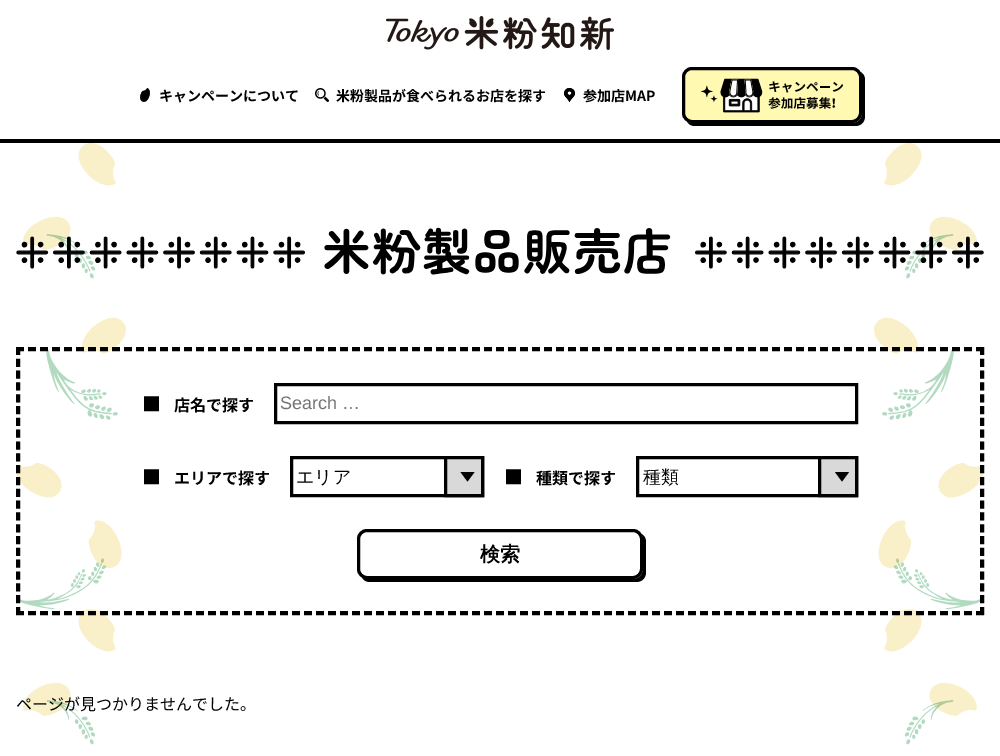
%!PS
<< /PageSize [1000 756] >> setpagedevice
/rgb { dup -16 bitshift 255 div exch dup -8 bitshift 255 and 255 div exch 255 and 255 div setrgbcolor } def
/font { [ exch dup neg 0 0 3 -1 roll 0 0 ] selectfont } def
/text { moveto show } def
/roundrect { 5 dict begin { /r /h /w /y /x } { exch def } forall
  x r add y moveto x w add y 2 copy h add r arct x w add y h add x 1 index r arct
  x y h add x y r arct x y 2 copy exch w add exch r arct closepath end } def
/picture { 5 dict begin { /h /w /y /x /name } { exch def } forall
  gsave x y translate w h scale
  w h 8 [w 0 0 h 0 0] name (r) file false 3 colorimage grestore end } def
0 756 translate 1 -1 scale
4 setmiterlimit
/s1 { /NotoSansJP-Bold 14 font 16#000000 rgb } def
/s2 { /NotoSansJP-Bold 19 font 16#000000 rgb } def
/s3 { /NotoSansJP-Bold 16 font 16#000000 rgb } def
/s4 { /LiberationSans-Regular 18 font 16#757575 rgb } def
/s5 { /WenQuanYiZenHei-Medium 18 font 16#000000 rgb } def
/s6 { /WenQuanYiZenHei-Bold 20 font 16#000000 rgb } def
/s7 { /NotoSansJP-Regular 16 font 16#000000 rgb } def
16#FFFFFF rgb
0 0 1000 756 rectfill
16#000000 rgb
0 139 1000 4 rectfill
(pic1.raw) 386 16 228 34 picture
(pic2.raw) 140 88 10 14 picture
s1
(キャンペーンについて) 159 101 text
(pic3.raw) 315 88 14 14 picture
(米粉製品が食べられるお店を探す) 336 101 text
(pic4.raw) 564 88 11 14 picture
(参加店MAP) 583 101 text
687 121 moveto 688 124 691 126 695 126 curveto 855 126 lineto 861 126 865 122 865 116 curveto 865 80 lineto 865 76 863 73 860 72 curveto 861 73 862 75 862 77 curveto 862 113 lineto 862 119 858 123 852 123 curveto 692 123 lineto 690 123 688 122 687 121 curveto closepath fill
16#FFF9B1 rgb
683.5 68.5 177 53 8.5 roundrect gsave fill grestore
16#000000 rgb
3 setlinewidth
stroke
(pic5.raw) 701 78 143 35 picture
(pic6.raw) 16 143 110 602 picture
(pic7.raw) 874 143 110 602 picture
(pic8.raw) 16 227 968 48 picture
4 setlinewidth
[8 4] 0 setdash
16 349 moveto 984 349 lineto stroke
[8 3.82] 0 setdash
982 347 moveto 982 615 lineto stroke
[8 4] 0 setdash
16 613 moveto 984 613 lineto stroke
[8 3.82] 0 setdash
18 347 moveto 18 615 lineto stroke
s2
(■) 142 411 text
s3
(店名で探す) 174 411 text
3 setlinewidth
[] 0 setdash
275.5 384.5 581 38 rectstroke
s4
(Search …) 280 409 text
s2
(■) 142 484 text
s3
(エリアで探す) 174 484 text
291.5 457.5 191 38 rectstroke
s5
(エリア) 296 483 text
16#D9D9DA rgb
445.5 457.5 moveto 482.5 457.5 lineto 482.5 495.5 lineto 445.5 495.5 lineto closepath gsave fill grestore
16#000000 rgb
stroke
474.5 472 moveto 467.5 481.5 lineto 460.5 472 lineto closepath fill
s2
(■) 504 484 text
s3
(種類で探す) 536 484 text
637.5 457.5 219 38 rectstroke
s5
(種類) 643 483 text
16#D9D9DA rgb
819.5 457.5 moveto 856.5 457.5 lineto 856.5 495.5 lineto 819.5 495.5 lineto closepath gsave fill grestore
16#000000 rgb
stroke
849 472 moveto 842 481.5 lineto 835 472 lineto closepath fill
362 577 moveto 363 580 366 582 370 582 curveto 636 582 lineto 642 582 646 578 646 572 curveto 646 542 lineto 646 538 644 535 641 534 curveto 642 535 643 537 643 539 curveto 643 569 lineto 643 575 639 579 633 579 curveto 367 579 lineto 365 579 363 578 362 577 curveto closepath fill
16#FFFFFF rgb
358.5 530.5 283 47 8.5 roundrect gsave fill grestore
16#000000 rgb
stroke
s6
(検索) 480 561 text
s7
(ページが見つかりませんでした。) 16 710 text
showpage
